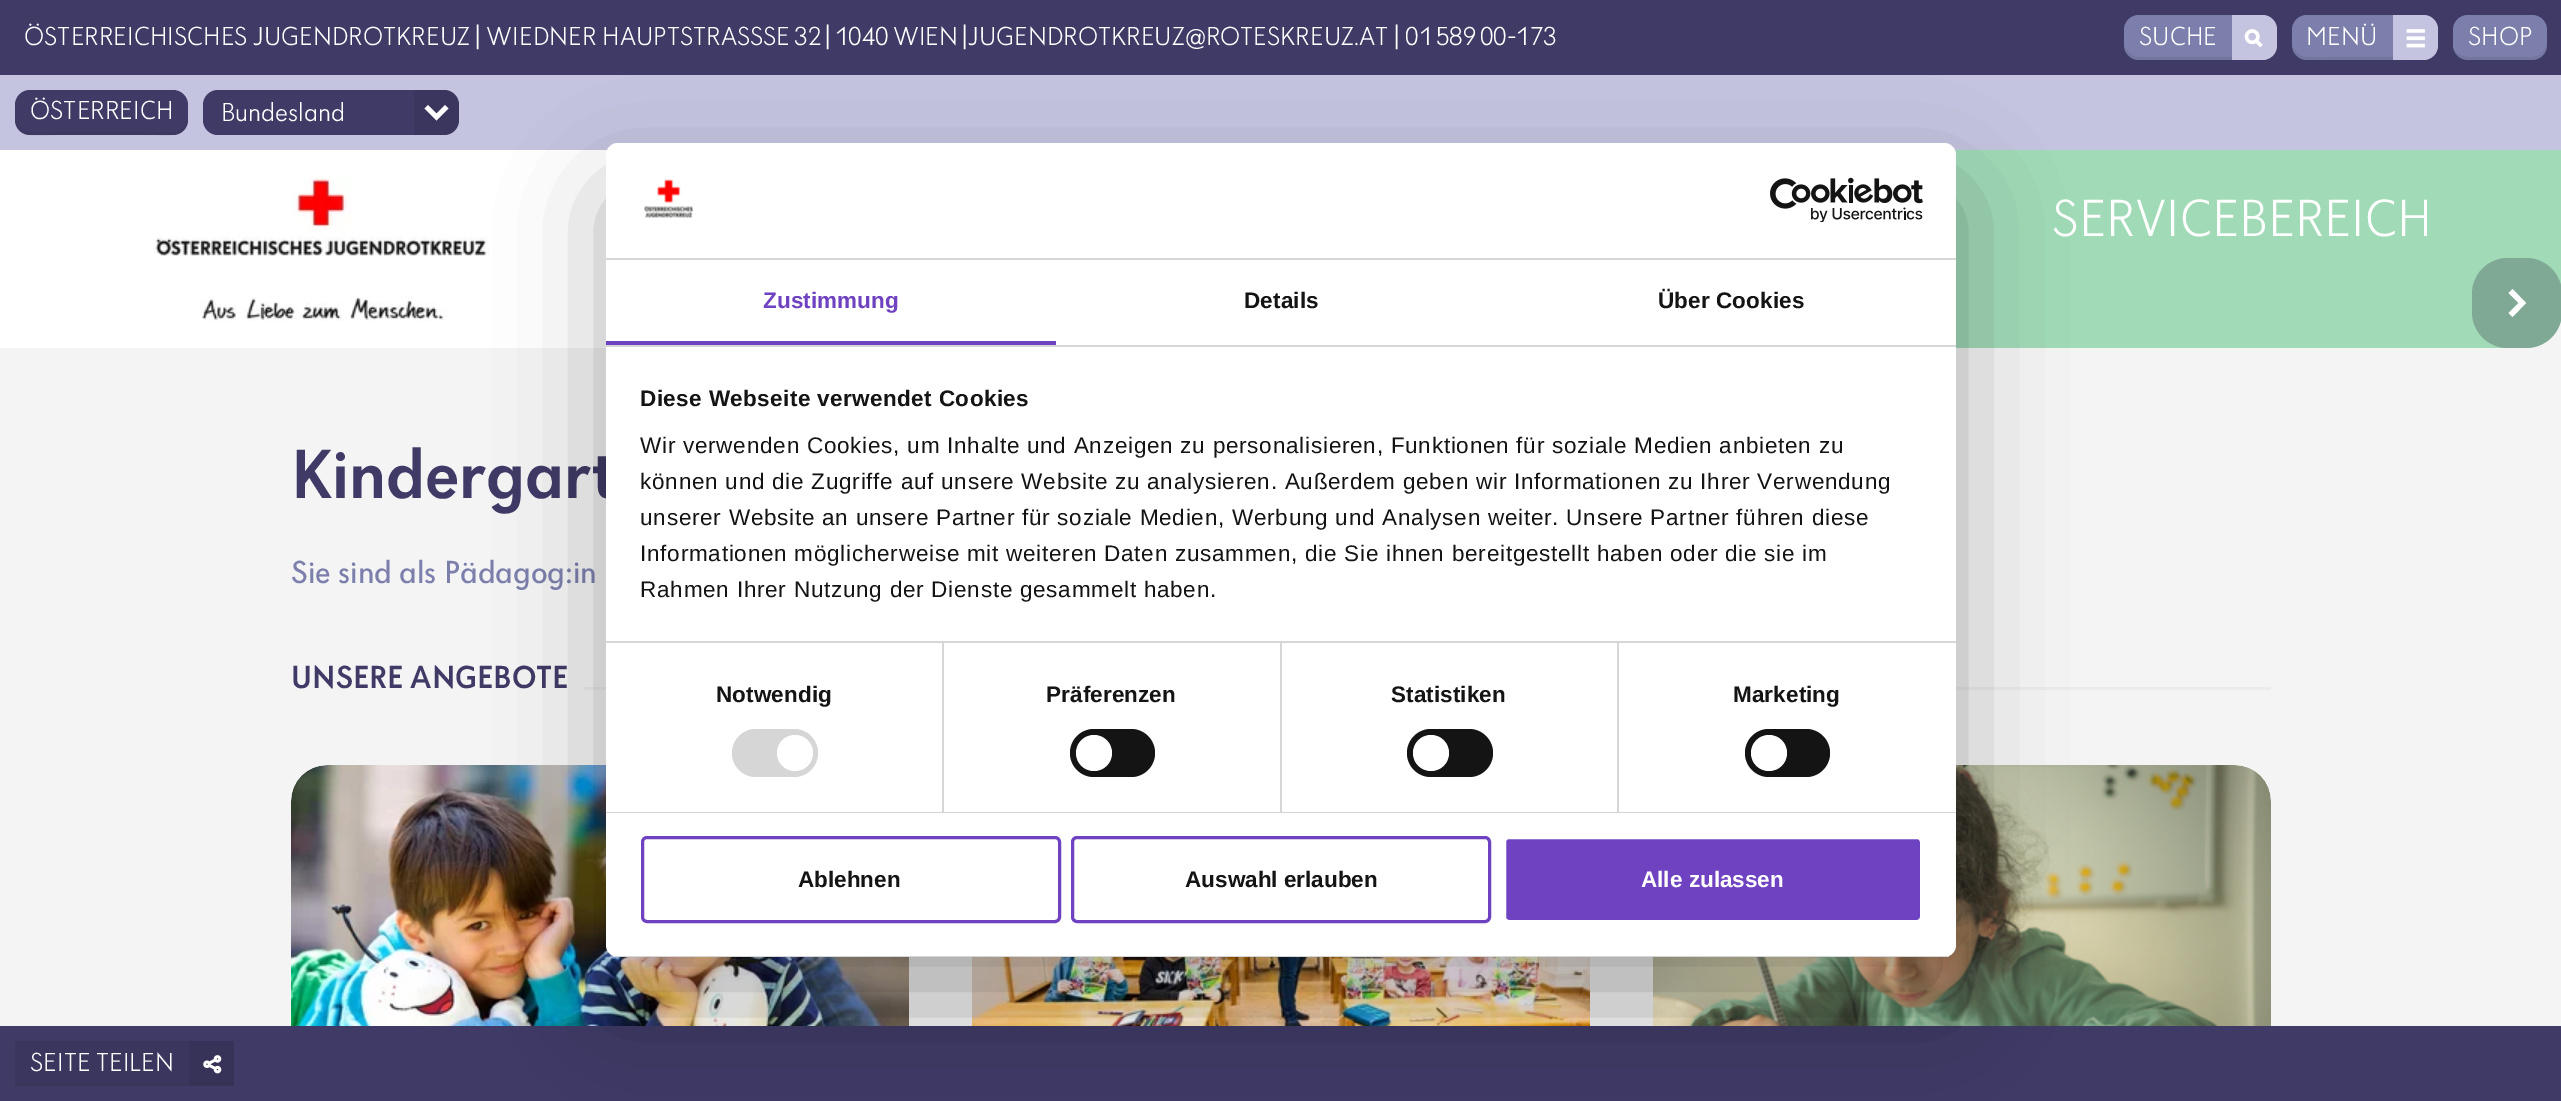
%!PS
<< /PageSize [2561 1101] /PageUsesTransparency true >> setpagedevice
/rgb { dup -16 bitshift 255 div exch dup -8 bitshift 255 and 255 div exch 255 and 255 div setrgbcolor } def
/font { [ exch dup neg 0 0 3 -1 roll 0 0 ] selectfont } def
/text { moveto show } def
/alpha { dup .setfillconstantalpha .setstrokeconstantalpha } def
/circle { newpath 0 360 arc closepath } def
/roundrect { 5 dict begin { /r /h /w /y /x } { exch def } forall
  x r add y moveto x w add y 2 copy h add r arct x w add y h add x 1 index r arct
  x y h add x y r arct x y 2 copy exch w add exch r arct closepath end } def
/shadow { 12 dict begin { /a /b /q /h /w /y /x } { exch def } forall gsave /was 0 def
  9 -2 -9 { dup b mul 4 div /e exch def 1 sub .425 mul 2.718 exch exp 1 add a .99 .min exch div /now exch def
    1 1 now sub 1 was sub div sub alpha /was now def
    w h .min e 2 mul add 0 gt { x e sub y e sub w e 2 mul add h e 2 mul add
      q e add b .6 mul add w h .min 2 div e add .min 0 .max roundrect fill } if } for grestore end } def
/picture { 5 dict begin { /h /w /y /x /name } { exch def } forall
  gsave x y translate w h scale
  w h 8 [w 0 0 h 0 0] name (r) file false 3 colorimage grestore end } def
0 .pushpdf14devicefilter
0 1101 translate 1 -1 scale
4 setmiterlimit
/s1 { /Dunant-Light 27 font 16#FFFFFF rgb } def
/s2 { /Dunant-Light 54 font 16#FFFFFF rgb } def
/s3 { /Dunant-Medium 72 font 16#3F3A66 rgb } def
/s4 { /Dunant-Regular 33 font 16#7C7FAB rgb } def
/s5 { /Dunant-Medium 33 font 16#3F3A66 rgb } def
/s6 { /LiberationSans-Bold 22.5 font 16#141414 rgb } def
/s7 { /LiberationSans-Bold 22.5 font 16#FFFFFF rgb } def
16#F4F4F5 rgb
0 0 2561 1101 rectfill
16#3F3A66 rgb
0 0 2561 75 rectfill
s1
(ÖSTERREICHISCHES JUGENDROTKREUZ | WIEDNER HAUPTSTRASS) 24 45 text
763 45 moveto -1.5 0 32 (SE 32 | 1040 WIEN |) widthshow
(JUGENDROTKREUZ@ROTESKREUZ.AT |) 968 45 text
1405 45 moveto -2 0 32 (01 589 00-173) widthshow
16#7C7FAB rgb
2124 15 153 45 15 roundrect fill
0.1 alpha
16#29273F rgb
2124 42 moveto 2124 64 2143 60 2160 60 curveto 2242 60 lineto 2258 60 2277 64 2277 42 curveto 2277 50 2270 57 2262 57 curveto 2139 57 lineto 2131 57 2124 50 2124 42 curveto closepath fill
1 alpha
s1
(SUCHE) 2139 45 text
16#C5C4E0 rgb
2232 15 moveto 2262 15 lineto 2270.5 15 2277 21.5 2277 30 curveto 2277 45 lineto 2277 53.5 2270.5 60 2262 60 curveto 2232 60 lineto closepath fill
(pic1.raw) 2244 29 19 19 picture
16#7C7FAB rgb
2292 15 146 45 15 roundrect fill
0.1 alpha
16#29273F rgb
2292 42 moveto 2292 64 2310 60 2326 60 curveto 2404 60 lineto 2420 60 2438 64 2438 42 curveto 2438 50 2431 57 2422 57 curveto 2307 57 lineto 2299 57 2292 50 2292 42 curveto closepath fill
1 alpha
s1
(MENÜ) 2306 45 text
16#C5C4E0 rgb
2393 15 moveto 2423 15 lineto 2431.5 15 2438 21.5 2438 30 curveto 2438 45 lineto 2438 53.5 2431.5 60 2423 60 curveto 2393 60 lineto closepath fill
(pic2.raw) 2406 29 19 19 picture
16#7C7FAB rgb
2453 15 94 45 15 roundrect fill
0.1 alpha
16#29273F rgb
2453 48 moveto 2455 55 2461 60 2468 60 curveto 2532 60 lineto 2540 60 2547 53 2547 45 curveto 2547 42 lineto 2547 50 2540 57 2532 57 curveto 2468 57 lineto 2461 57 2456 53 2453 48 curveto closepath fill
1 alpha
s1
(SHOP) 2468 45 text
16#C5C4E0 rgb
0 75 2561 75 rectfill
16#3F3A66 rgb
15 90 173 45 15 roundrect fill
0.1 alpha
16#29273F rgb
15 117 moveto 15 140 36 135 54 135 curveto 149 135 lineto 167 135 188 140 188 117 curveto 188 125 181 132 172 132 curveto 30 132 lineto 22 132 15 125 15 117 curveto closepath fill
1 alpha
s1
(ÖSTERREICH) 30 119 text
16#3F3A66 rgb
203 90 256 45 15 roundrect fill
0.2 alpha
16#29273F rgb
414 90 moveto 444 90 lineto 452.5 90 459 96.5 459 105 curveto 459 120 lineto 459 128.5 452.5 135 444 135 curveto 414 135 lineto closepath fill
1 alpha
16#FFFFFF rgb
424.5 108.5 moveto 428 105 lineto 436.5 113.5 lineto 445 105 lineto 448.5 108.5 lineto 436.5 120.5 lineto closepath fill
(Bundesland) 221 121 text
0 150 608 198 rectfill
(pic3.raw) 154 177 335 144 picture
16#A0DAB6 rgb
1922 150 moveto 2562 150 lineto 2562 312 lineto 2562 332 2546 348 2526 348 curveto 1922 348 lineto closepath fill
s2
(SERVICEBEREICH) 2052 236 text
0.1 alpha
16#29273F rgb
2472 258 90 90 36 roundrect fill
0.2 alpha
2472 258 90 90 36 roundrect fill
1 alpha
16#FFFFFF rgb
2512.5 289 moveto 2508.5 293 lineto 2518.5 303 lineto 2508.5 313 lineto 2512.5 317 lineto 2526 303 lineto closepath fill
s3
(Kindergart) 291 498 text
s4
(Sie sind als Pädagog:in) 291 583 text
s5
(UNSERE ANGEBOTE) 291 688 text
16#EBEBEE rgb
584 687 1687 3 rectfill
16#FFFFFF rgb
291 765 618 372 36 roundrect fill
(pic4.raw) 291 765 618 261 picture
(pic5.raw) 972 957 618 69 picture
1653 765 618 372 36 roundrect fill
(pic6.raw) 1653 765 618 261 picture
16#3F3A66 rgb
0 1026 2561 75 rectfill
16#000000 rgb
606 191 1350 814 12 51 0.3 shadow
16#FFFFFF rgb
606 143 1350 814 12 roundrect fill
16#D6D6D6 rgb
606 258 1350 2 rectfill
(pic7.raw) 644 179 49 39 picture
(pic8.raw) 1770 177 153 45 picture
606 345 1350 2 rectfill
16#6F42C1 rgb
606 341 450 4 rectfill
/LiberationSans-Bold 22.5 font
763 308 moveto 0.1 0 (Zustimmung) ashow
16#141414 rgb
1244 308 moveto 0.1 0 (Details) ashow
1658 308 moveto 0.1 0 (Über Cookies) ashow
16#D6D6D6 rgb
942 642 2 170 rectfill
1280 642 2 170 rectfill
1617 642 2 170 rectfill
606 641 1350 2 rectfill
16#141414 rgb
640 406 moveto 0.4 0 (Diese Webseite verwendet Cookies) ashow
/LiberationSans-Regular 22.5 font
640 453 moveto 0.75 0 (Wir verwenden Cookies, um Inhalte und Anzeigen zu personalisieren, Funktionen für soziale Medien anbieten zu) ashow
640 489 moveto 0.75 0 (können und die Zugriffe auf unsere Website zu analysieren. Außerdem geben wir Informationen zu Ihrer Verwendung) ashow
640 525 moveto 0.75 0 (unserer Website an unsere Partner für soziale Medien, Werbung und Analysen weiter. Unsere Partner führen diese) ashow
640 561 moveto 0.75 0 (Informationen möglicherweise mit weiteren Daten zusammen, die Sie ihnen bereitgestellt haben oder die sie im) ashow
640 597 moveto 0.75 0 (Rahmen Ihrer Nutzung der Dienste gesammelt haben.) ashow
16#D6D6D6 rgb
606 812 1350 1 rectfill
/LiberationSans-Bold 22.5 font
16#141414 rgb
716 702 moveto 0.1 0 (Notwendig) ashow
16#D6D6D6 rgb
732 729 86 48 24 roundrect fill
16#FFFFFF rgb
795 753 18 circle fill
16#141414 rgb
1046 702 moveto 0.1 0 (Präferenzen) ashow
1070 729 85 48 24 roundrect fill
16#FFFFFF rgb
1094 753 18 circle fill
16#141414 rgb
1391 702 moveto 0.1 0 (Statistiken) ashow
1407 729 86 48 24 roundrect fill
16#FFFFFF rgb
1431 753 18 circle fill
16#141414 rgb
1733 702 moveto 0.1 0 (Marketing) ashow
1745 729 85 48 24 roundrect fill
16#FFFFFF rgb
1769 753 18 circle fill
gsave
606 143 1350 814 12 roundrect clip newpath
16#D6D6D6 rgb
606 956 1350 1 rectfill
grestore
16#6F42C1 rgb
3 setlinewidth
642.5 837.5 417 84 4.5 roundrect stroke
s6
(Ablehnen) 798 887 text
16#6F42C1 rgb
1072.5 837.5 417 84 4.5 roundrect stroke
s6
(Auswahl erlauben) 1185 887 text
16#6F42C1 rgb
1504.5 837.5 417 84 4.5 roundrect gsave fill grestore
16#FFFFFF rgb
stroke
(Alle zulassen) 1641 887 text
16#3B365E rgb
15 1041 174 42 rectfill
16#373358 rgb
189 1041 45 42 rectfill
16#39355B rgb
15 1083 174 3 rectfill
16#363255 rgb
189 1083 45 3 rectfill
s1
(SEITE TEILEN) 30 1071 text
(pic9.raw) 203 1055 19 19 picture
.poppdf14devicefilter showpage
